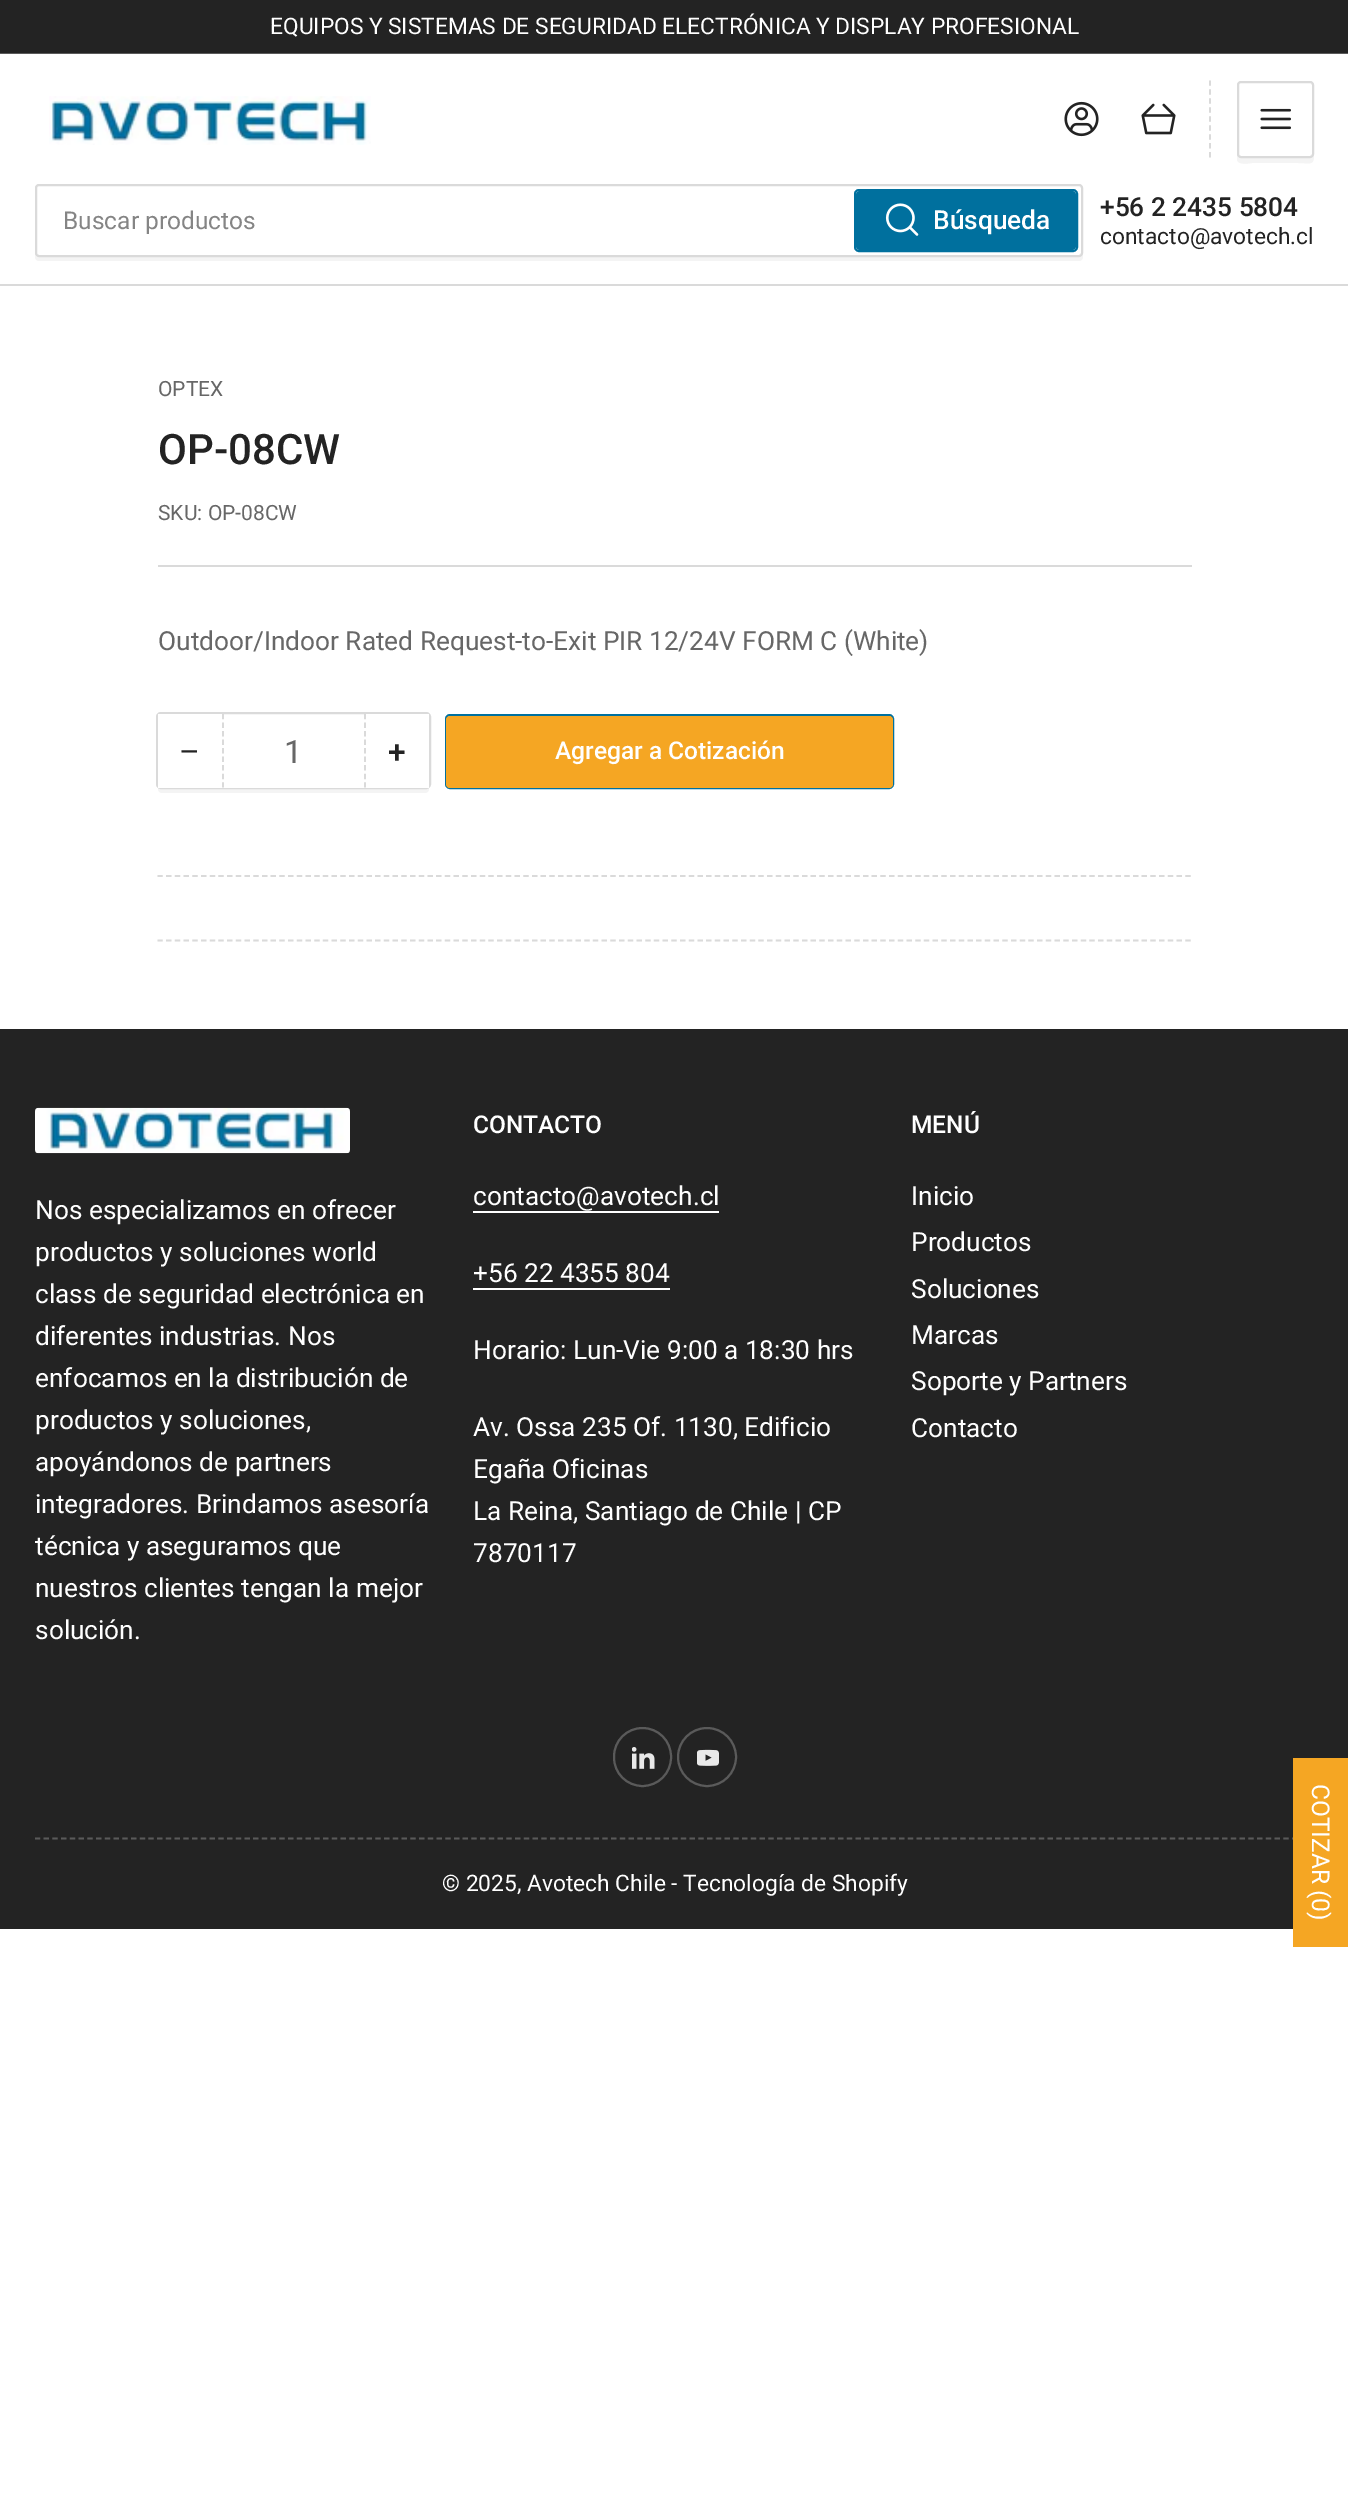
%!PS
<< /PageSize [1348 2507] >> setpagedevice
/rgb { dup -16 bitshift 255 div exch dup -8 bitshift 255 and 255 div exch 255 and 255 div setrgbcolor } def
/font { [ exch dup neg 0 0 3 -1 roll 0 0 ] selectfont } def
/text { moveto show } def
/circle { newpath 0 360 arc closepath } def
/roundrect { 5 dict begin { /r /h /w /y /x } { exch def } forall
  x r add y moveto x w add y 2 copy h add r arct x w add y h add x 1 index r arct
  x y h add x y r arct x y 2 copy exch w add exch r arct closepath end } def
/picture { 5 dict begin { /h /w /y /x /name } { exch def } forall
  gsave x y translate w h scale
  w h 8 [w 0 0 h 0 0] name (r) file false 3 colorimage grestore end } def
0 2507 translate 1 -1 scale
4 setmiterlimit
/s1 { /Roboto-Regular 22.75 font 16#FFFFFF rgb } def
/s2 { /Roboto-Regular 24.5 font 16#858585 rgb } def
/s3 { /Roboto-Medium 26.25 font 16#FFFFFF rgb } def
/s4 { /Roboto-Medium 26.25 font 16#232323 rgb } def
/s5 { /Roboto-Regular 22.75 font 16#232323 rgb } def
/s6 { /Roboto-Regular 21 font 16#676767 rgb } def
/s7 { /Roboto-Medium 42 font 16#232323 rgb } def
/s8 { /Roboto-Regular 26.25 font 16#676767 rgb } def
/s9 { /LiberationSans-Regular 32 font 16#232323 rgb } def
/s10 { /Roboto-Regular 32 font 16#676767 rgb } def
/s11 { /Roboto-Medium 32 font 16#232323 rgb } def
/s12 { /Roboto-Medium 24.5 font 16#FFFFFF rgb } def
/s13 { /Roboto-Regular 26.25 font 16#FFFFFF rgb } def
16#FFFFFF rgb
0 0 1348 2507 rectfill
16#232323 rgb
0 0 1348 53 rectfill
16#5A5A5A rgb
0 53 1348 1 rectfill
s1
(EQUIPOS Y SISTEMAS DE SEGURIDAD ELECTRÓNICA Y DISPLAY PROFESIONAL) 270 34 text
16#DADADA rgb
0 284 1348 2 rectfill
(pic1.raw) 49 96 322 49 picture
(pic2.raw) 1064 101 35 36 picture
(pic3.raw) 1141 103 35 32 picture
1.8 setlinewidth
[5.25 3.71] 0 setdash
1210 80.5 moveto 1210 157.5 lineto stroke
16#F4F4F4 rgb
1237 89 moveto 1237 159 lineto 1237 166 1251 163 1252 163 curveto 1298 163 lineto 1310 163 1314 166 1314 155 curveto 1313 157 1312 158 1311 158 curveto 1241 158 lineto 1239 158 1237 156 1237 154 curveto closepath fill
16#DADADA rgb
2 setlinewidth
[] 0 setdash
1238 82 75 75 3 roundrect stroke
(pic4.raw) 1260 108 31 22 picture
16#F4F4F4 rgb
35 254 moveto 35 257 lineto 35 259 37 261 39 261 curveto 1079 261 lineto 1081 261 1083 259 1083 257 curveto 1083 255 lineto 1082 256 1081 257 1080 257 curveto 38 257 lineto 37 257 35 256 35 254 curveto closepath fill
16#DADADA rgb
36 185 1046 71 3 roundrect stroke
s2
(Buscar productos) 63 229 text
16#00709E rgb
855 190 222 61 4 roundrect stroke
856 191 220 59 4 roundrect fill
(pic5.raw) 885 203 34 33 picture
s3
(Búsqueda) 933 229 text
s4
(+56 2 2435 5804) 1100 216 text
s5
(contacto@avotech.cl) 1100 244 text
16#DADADA rgb
158 565 1034 2 rectfill
s6
(OPTEX) 158 396 text
s7
(OP-08CW) 158 464 text
s6
(SKU: OP-08CW) 158 520 text
s8
(Outdoor/Indoor Rated Request-to-Exit PIR 12/24V FORM C \(White\)) 158 650 text
16#F4F4F4 rgb
158 786 moveto 158 789 lineto 158 791 160 793 162 793 curveto 425 793 lineto 427 793 429 791 429 789 curveto 429 722 lineto 429 784 lineto 429 786 427 788 425 788 curveto 161 788 lineto 160 788 159 787 158 786 curveto closepath fill
16#DADADA rgb
157 713 273 75 4 roundrect stroke
16#FFFFFF rgb
222 787 144 1 rectfill
158 714 64 74 rectfill
s9
(−) 180 762 text
16#DADADA rgb
1.8 setlinewidth
[5.25 3.29] 0 setdash
365 714 moveto 365 787.5 lineto stroke
223 714 moveto 223 787.5 lineto stroke
s10
(1) 284 763 text
16#FFFFFF rgb
366 714 63 74 rectfill
s11
(+) 388 763 text
16#00709E rgb
2 setlinewidth
[] 0 setdash
446 715 447 73 4 roundrect stroke
16#F5A623 rgb
446 716 447 72 4 roundrect fill
s12
(Agregar a Cotización) 555 759 text
16#DADADA rgb
1.8 setlinewidth
[5.25 3.46] 0 setdash
157.5 876 moveto 1192 876 lineto stroke
157.5 940.5 moveto 1192 940.5 lineto stroke
16#232323 rgb
0 1029 1348 809 rectfill
(pic6.raw) 35 1107 315 47 picture
s13
(Nos especializamos en ofrecer) 35 1219 text
(productos y soluciones world) 35 1261 text
(class de seguridad electrónica en) 35 1303 text
(diferentes industrias. Nos) 35 1345 text
(enfocamos en la distribución de) 35 1387 text
(productos y soluciones,) 35 1429 text
(apoyándonos de partners) 35 1471 text
(integradores. Brindamos asesoría) 35 1513 text
(técnica y aseguramos que) 35 1555 text
(nuestros clientes tengan la mejor) 35 1597 text
(solución.) 35 1639 text
s12
(CONTACTO) 473 1133 text
s13
(contacto@avotech.cl) 473 1205 text
473 1211 246 2 rectfill
(+56 22 4355 804) 473 1282 text
473 1288 197 2 rectfill
(Horario: Lun-Vie 9:00 a 18:30 hrs) 473 1359 text
(Av. Ossa 235 Of. 1130, Edificio) 473 1436 text
(Egaña Oficinas) 473 1478 text
(La Reina, Santiago de Chile | CP) 473 1520 text
(7870117) 473 1562 text
s12
(MENÚ) 911 1133 text
s13
(Inicio) 911 1205 text
(Productos) 911 1251 text
(Soluciones) 911 1298 text
(Marcas) 911 1344 text
(Soporte y Partners) 911 1390 text
(Contacto) 911 1437 text
16#5A5A5A rgb
2 setlinewidth
[] 0 setdash
614 1728 57 58 28.5 roundrect stroke
(pic7.raw) 632 1747 23 22 picture
707 1757 29 circle stroke
(pic8.raw) 697 1749 22 17 picture
16#232323 rgb
0 1838 1293 91 rectfill
16#5A5A5A rgb
1.8 setlinewidth
[5.25 3.48] 0 setdash
35 1838.5 moveto 1314 1838.5 lineto stroke
s1
(© 2025, Avotech Chile - Tecnología de Shopify) 442 1891 text
16#F5A623 rgb
1293 1758 55 189 rectfill
/Roboto-Regular 24.5 font
16#FFFFFF rgb
gsave 1312 1784 translate 90 rotate 0 0 moveto (COTIZAR \(0\)) show grestore
showpage
